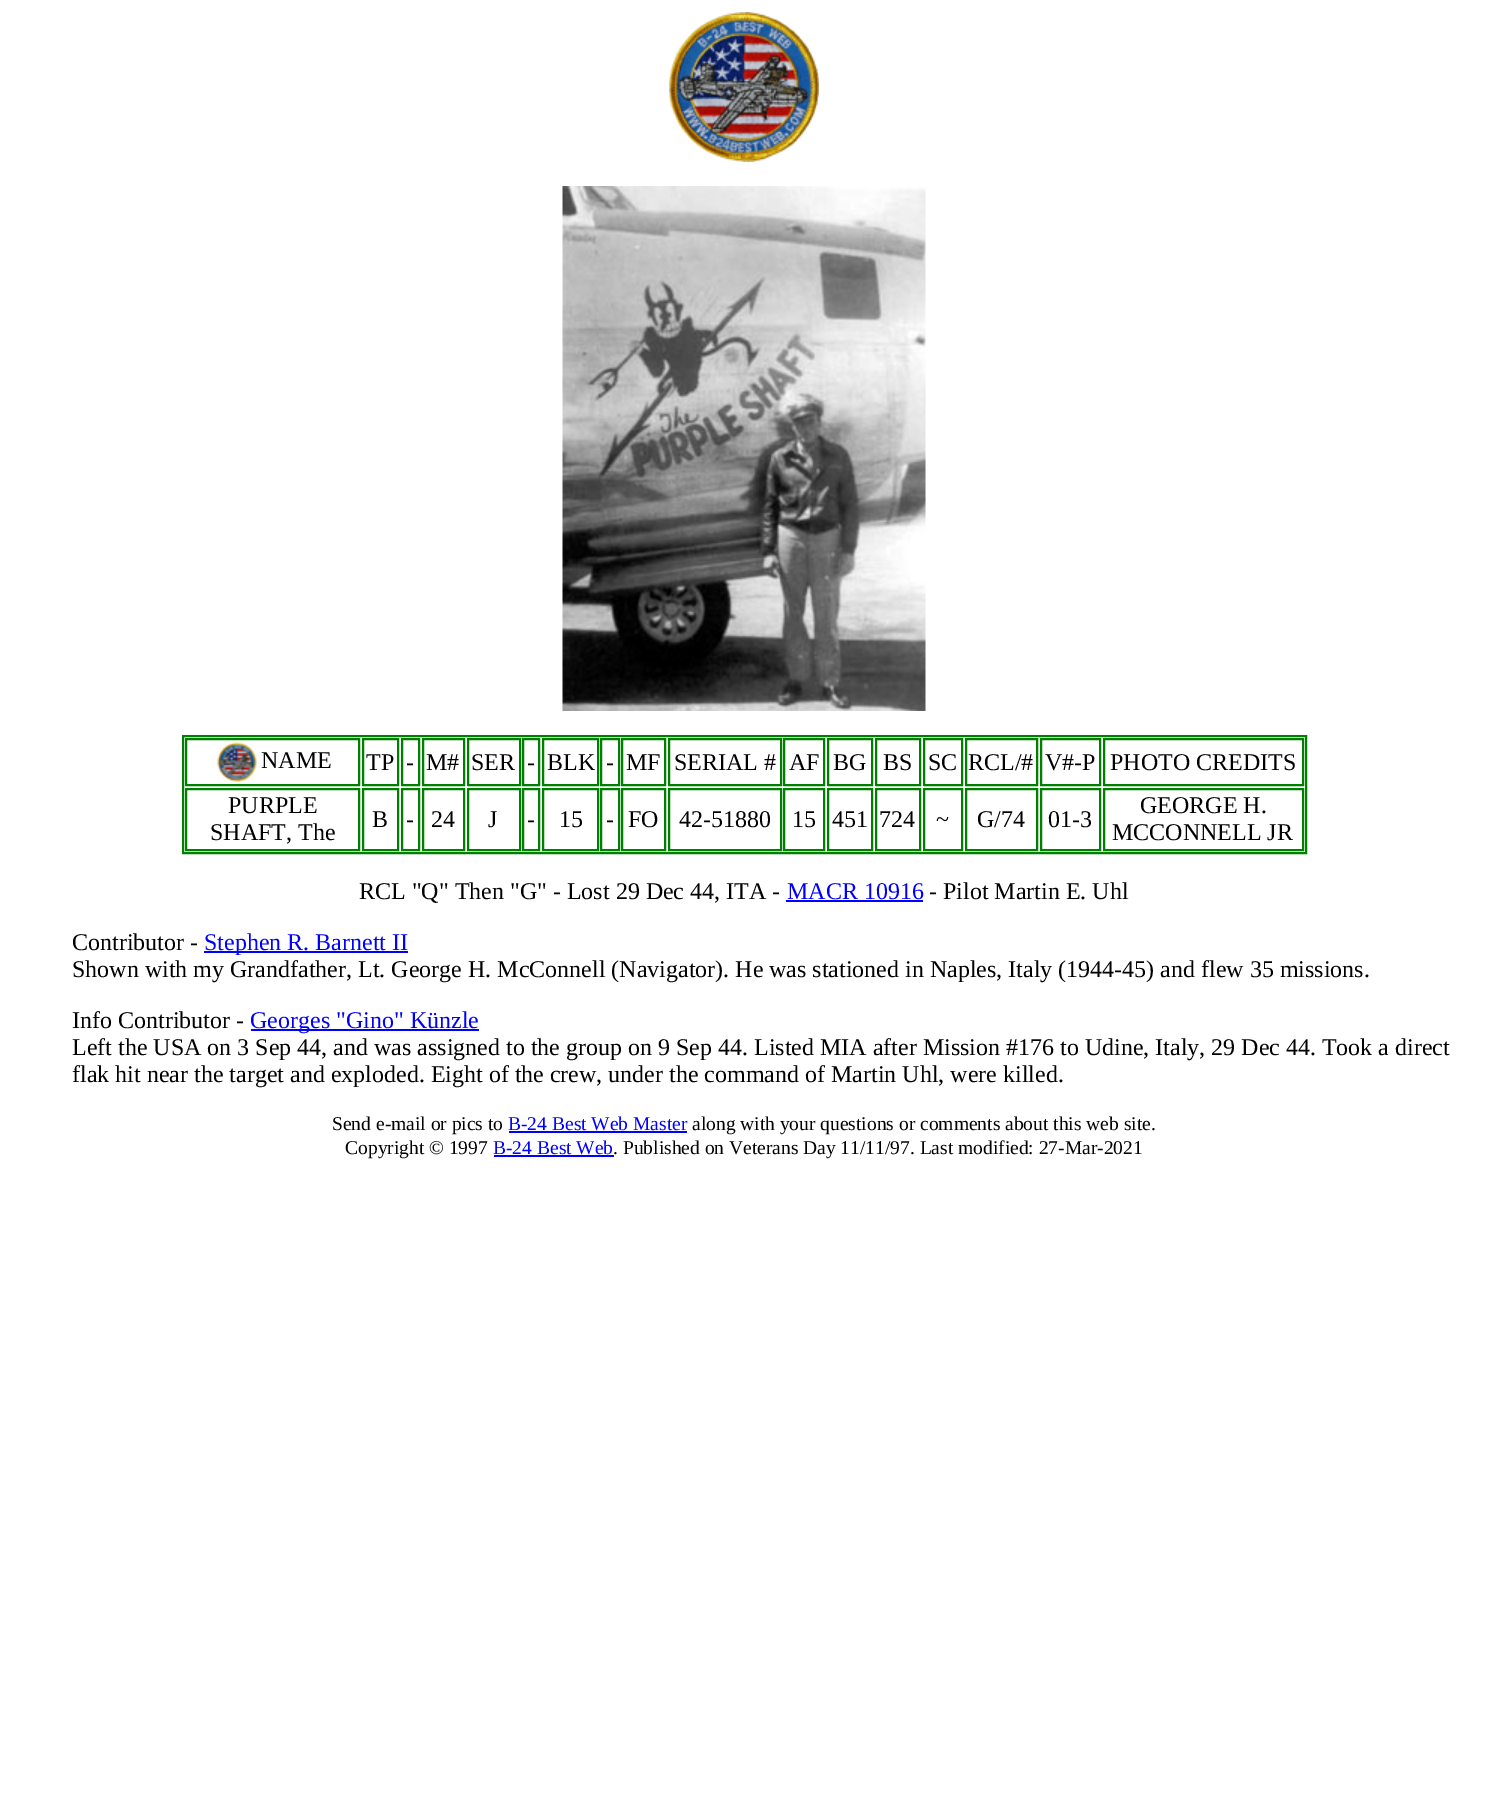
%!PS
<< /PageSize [1487 1814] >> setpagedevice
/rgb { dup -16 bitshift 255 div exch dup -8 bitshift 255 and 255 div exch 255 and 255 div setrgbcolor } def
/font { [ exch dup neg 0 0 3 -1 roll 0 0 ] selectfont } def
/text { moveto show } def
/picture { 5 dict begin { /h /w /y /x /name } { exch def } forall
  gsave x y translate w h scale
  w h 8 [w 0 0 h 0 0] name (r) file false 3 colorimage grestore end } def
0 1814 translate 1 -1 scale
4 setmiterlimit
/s1 { /LiberationSerif-Regular 24 font 16#000000 rgb } def
/s2 { /LiberationSerif-Regular 24 font 16#0000FF rgb } def
/s3 { /LiberationSerif-Regular 19.5 font 16#000000 rgb } def
/s4 { /LiberationSerif-Regular 19.5 font 16#0000FF rgb } def
16#FFFFFF rgb
0 0 1487 1814 rectfill
(pic1.raw) 669 12 150 150 picture
(pic2.raw) 562 186 364 525 picture
16#008000 rgb
2 setlinewidth
183 736 1123 117 rectstroke
186 739 173 46 rectstroke
(pic3.raw) 217 742 40 40 picture
s1
(NAME) 261 768 text
16#008000 rgb
363 739 35 46 rectstroke
s1
(TP) 366 770 text
16#008000 rgb
402 739 17 46 rectstroke
s1
(-) 406 770 text
16#008000 rgb
423 739 41 46 rectstroke
s1
(M#) 426 770 text
16#008000 rgb
468 739 52 46 rectstroke
s1
(SER) 471 770 text
16#008000 rgb
523 739 16 46 rectstroke
s1
(-) 527 770 text
16#008000 rgb
543 739 55 46 rectstroke
s1
(BLK) 547 770 text
16#008000 rgb
601 739 18 46 rectstroke
s1
(-) 606 770 text
16#008000 rgb
622 739 43 46 rectstroke
s1
(MF) 626 770 text
16#008000 rgb
669 739 112 46 rectstroke
s1
(SERIAL #) 674 770 text
16#008000 rgb
784 739 40 46 rectstroke
s1
(AF) 789 770 text
16#008000 rgb
828 739 44 46 rectstroke
s1
(BG) 833 770 text
16#008000 rgb
876 739 44 46 rectstroke
s1
(BS) 883 770 text
16#008000 rgb
924 739 38 46 rectstroke
s1
(SC) 928 770 text
16#008000 rgb
966 739 71 46 rectstroke
s1
(RCL/#) 968 770 text
16#008000 rgb
1041 739 59 46 rectstroke
s1
(V#-P) 1045 770 text
16#008000 rgb
1104 739 199 46 rectstroke
s1
(PHOTO CREDITS) 1110 770 text
16#008000 rgb
186 789 173 61 rectstroke
s1
(PURPLE) 228 813 text
(SHAFT, The) 210 840 text
16#008000 rgb
363 789 35 61 rectstroke
s1
(B) 372 827 text
16#008000 rgb
402 789 17 61 rectstroke
s1
(-) 406 827 text
16#008000 rgb
423 789 41 61 rectstroke
s1
(24) 431 827 text
16#008000 rgb
468 789 52 61 rectstroke
s1
(J) 488 827 text
16#008000 rgb
523 789 16 61 rectstroke
s1
(-) 527 827 text
16#008000 rgb
543 789 55 61 rectstroke
s1
(15) 559 827 text
16#008000 rgb
601 789 18 61 rectstroke
s1
(-) 606 827 text
16#008000 rgb
622 789 43 61 rectstroke
s1
(FO) 628 827 text
16#008000 rgb
669 789 112 61 rectstroke
s1
(42-51880) 679 827 text
16#008000 rgb
784 789 40 61 rectstroke
s1
(15) 792 827 text
16#008000 rgb
828 789 44 61 rectstroke
s1
(451) 832 827 text
16#008000 rgb
876 789 44 61 rectstroke
s1
(724) 879 827 text
16#008000 rgb
924 789 38 61 rectstroke
s1
(~) 936 827 text
16#008000 rgb
966 789 71 61 rectstroke
s1
(G/74) 977 827 text
16#008000 rgb
1041 789 59 61 rectstroke
s1
(01-3) 1048 827 text
16#008000 rgb
1104 789 199 61 rectstroke
s1
(GEORGE H.) 1140 813 text
(MCCONNELL JR) 1112 840 text
(RCL "Q" Then "G" - Lost 29 Dec 44, ITA -) 359 899 text
s2
(MACR 10916) 787 899 text
786 900 137 2 rectfill
s1
(- Pilot Martin E. Uhl) 929 899 text
(Contributor -) 72 950 text
16#0000FF rgb
204 951 204 2 rectfill
(Stephen R. Barnett II) 204 950 text
s1
(Shown with my Grandfather, Lt. George H. McConnell \(Navigator\). He was stationed in Naples, Italy \(1944-45\) and flew 35 missions.) 72 977 text
(Info Contributor -) 72 1028 text
16#0000FF rgb
251 1029 228 2 rectfill
(Georges "Gino" Künzle) 250 1028 text
s1
(Left the USA on 3 Sep 44, and was assigned to the group on 9 Sep 44. Listed MIA after Mission #176 to Udine, Italy, 29 Dec 44. Took a direct) 72 1055 text
(flak hit near the target and exploded. Eight of the crew, under the command of Martin Uhl, were killed.) 72 1082 text
s3
(Send e-mail or pics to) 332 1130 text
s4
(B-24 Best Web Master) 508 1130 text
509 1131 178 2 rectfill
s3
(along with your questions or comments about this web site.) 692 1130 text
(Copyright © 1997) 345 1154 text
s4
(B-24 Best Web) 493 1154 text
s3
(. Published on Veterans Day 11/11/97. Last modified: 27-Mar-2021) 613 1154 text
16#0000FF rgb
494 1155 120 2 rectfill
showpage
